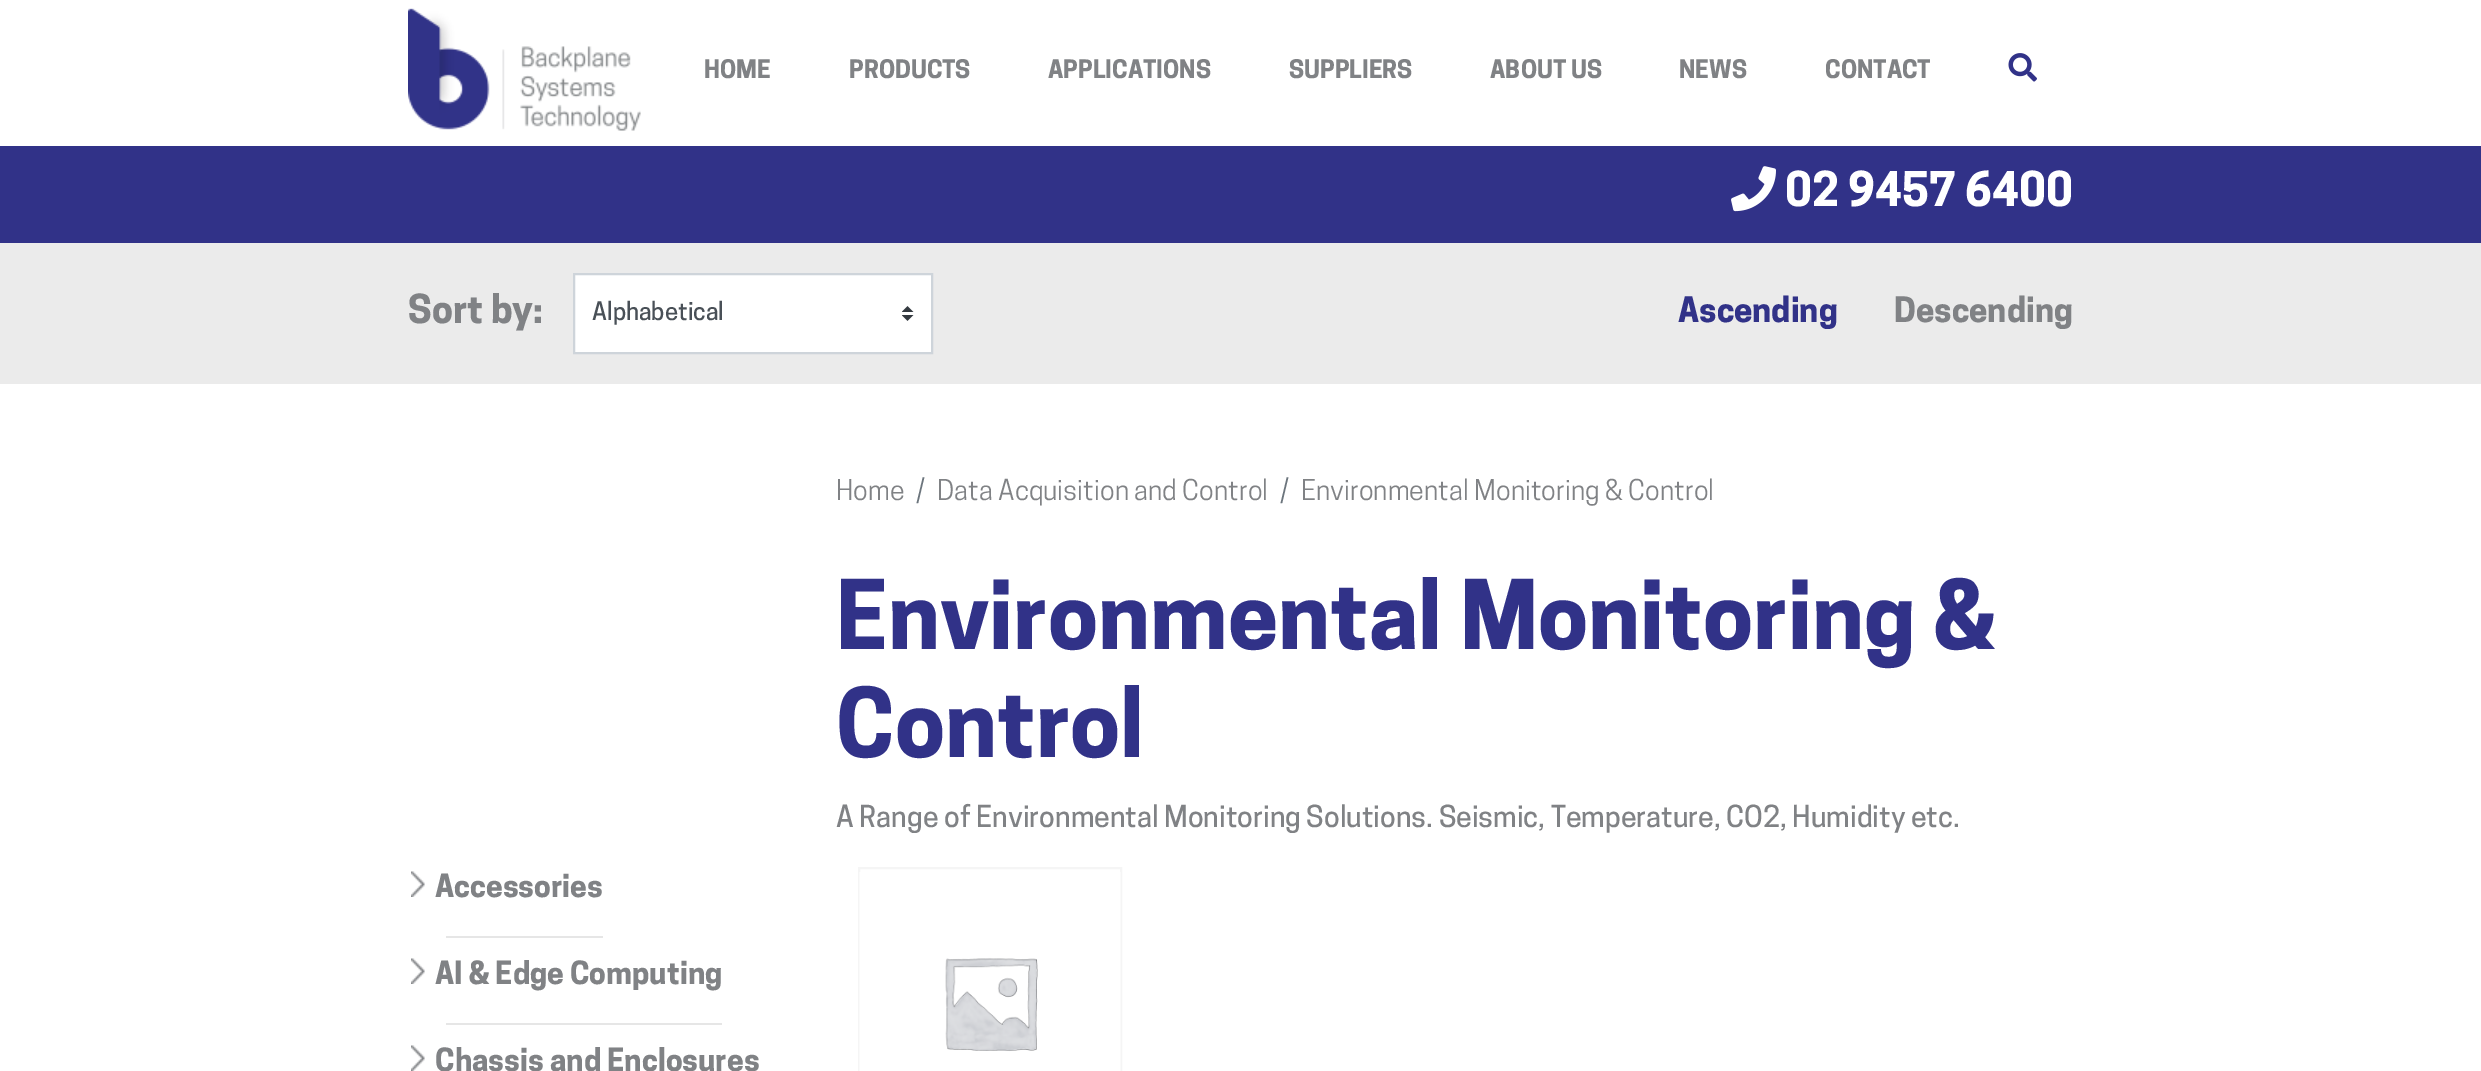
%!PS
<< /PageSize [2481 1071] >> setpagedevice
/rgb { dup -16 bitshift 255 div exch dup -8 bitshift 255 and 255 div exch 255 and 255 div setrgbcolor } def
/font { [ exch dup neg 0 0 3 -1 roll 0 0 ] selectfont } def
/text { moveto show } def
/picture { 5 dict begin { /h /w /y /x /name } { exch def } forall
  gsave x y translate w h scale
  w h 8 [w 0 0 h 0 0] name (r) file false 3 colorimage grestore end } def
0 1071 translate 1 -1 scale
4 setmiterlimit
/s1 { /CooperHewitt-Bold 24 font 16#808285 rgb } def
/s2 { /CooperHewitt-Bold 45 font 16#FFFFFF rgb } def
/s3 { /CooperHewitt-Bold 37.5 font 16#808285 rgb } def
/s4 { /CooperHewitt-Medium 24 font 16#495057 rgb } def
/s5 { /CooperHewitt-Bold 33 font 16#313288 rgb } def
/s6 { /CooperHewitt-Bold 33 font 16#808285 rgb } def
/s7 { /CooperHewitt-Regular 27 font 16#808285 rgb } def
/s8 { /CooperHewitt-Regular 27 font 16#6C757D rgb } def
/s9 { /CooperHewitt-Bold 90 font 16#313288 rgb } def
/s10 { /CooperHewitt-Medium 28.5 font 16#808285 rgb } def
/s11 { /CooperHewitt-Bold 30 font 16#808285 rgb } def
16#FFFFFF rgb
0 0 2481 1071 rectfill
(pic1.raw) 408 8 233 123 picture
s1
(HOME) 704 78 text
(PRODUCTS) 849 78 text
(APPLICATIONS) 1048 78 text
(SUPPLIERS) 1289 78 text
(ABOUT US) 1490 78 text
(NEWS) 1679 78 text
(CONTACT) 1825 78 text
(pic2.raw) 2008 53 29 29 picture
16#313288 rgb
0 146 2481 97 rectfill
(pic3.raw) 1731 166 45 46 picture
s2
(02 9457 6400) 1785 206 text
16#EBEBEB rgb
0 243 2481 141 rectfill
s3
(Sort by:) 408 323 text
16#FFFFFF rgb
575 275 356 77 rectfill
(pic4.raw) 902 306 12 15 picture
16#CED4DA rgb
2 setlinewidth
574 274 358 79 rectstroke
s4
(Alphabetical) 592 320 text
s5
(Ascending) 1678 322 text
s6
(Descending) 1894 322 text
s7
(Home) 836 500 text
s8
(/) 916 500 text
s7
(Data Acquisition and Control) 937 500 text
s8
(/) 1280 500 text
s7
(Environmental Monitoring & Control) 1301 500 text
s9
(Environmental Monitoring &) 836 649 text
(Control) 836 757 text
s10
(A Range of Environmental Monitoring Solutions. Seismic, Temperature, CO2, Humidity etc.) 836 827 text
(pic5.raw) 411 871 14 26 picture
s11
(Accessories) 435 897 text
16#E6E6E6 rgb
446 936 157 2 rectfill
(pic5.raw) 411 958 14 26 picture
s11
(AI & Edge Computing) 435 984 text
16#E6E6E6 rgb
446 1023 276 2 rectfill
(pic5.raw) 411 1045 14 26 picture
s11
(Chassis and Enclosures) 435 1071 text
16#F5F5F5 rgb
859 868 262 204 rectstroke
(pic6.raw) 859 872 262 199 picture
showpage
